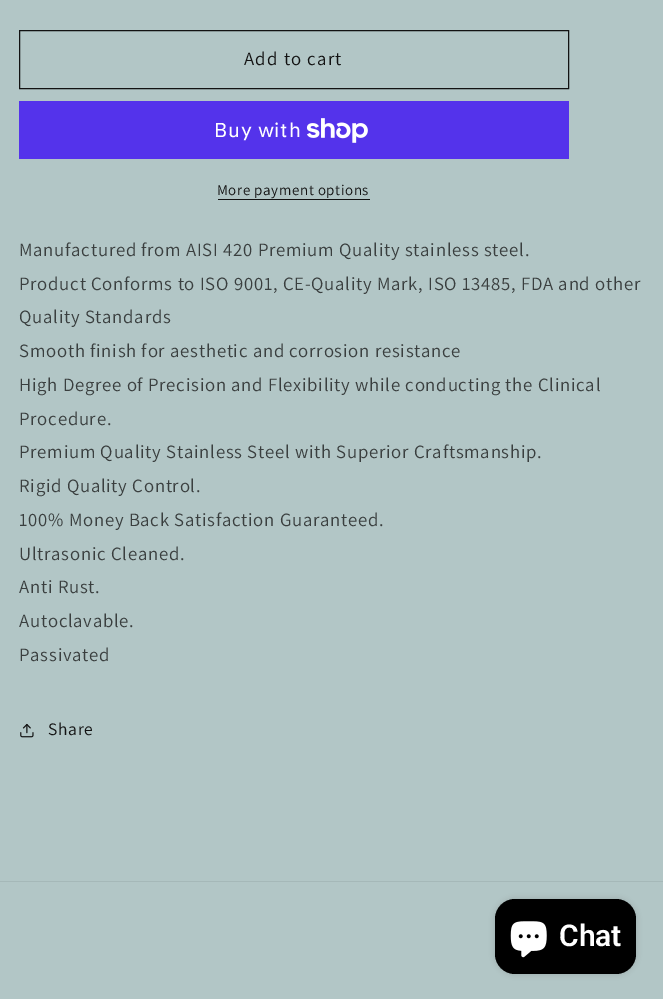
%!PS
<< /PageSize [663 999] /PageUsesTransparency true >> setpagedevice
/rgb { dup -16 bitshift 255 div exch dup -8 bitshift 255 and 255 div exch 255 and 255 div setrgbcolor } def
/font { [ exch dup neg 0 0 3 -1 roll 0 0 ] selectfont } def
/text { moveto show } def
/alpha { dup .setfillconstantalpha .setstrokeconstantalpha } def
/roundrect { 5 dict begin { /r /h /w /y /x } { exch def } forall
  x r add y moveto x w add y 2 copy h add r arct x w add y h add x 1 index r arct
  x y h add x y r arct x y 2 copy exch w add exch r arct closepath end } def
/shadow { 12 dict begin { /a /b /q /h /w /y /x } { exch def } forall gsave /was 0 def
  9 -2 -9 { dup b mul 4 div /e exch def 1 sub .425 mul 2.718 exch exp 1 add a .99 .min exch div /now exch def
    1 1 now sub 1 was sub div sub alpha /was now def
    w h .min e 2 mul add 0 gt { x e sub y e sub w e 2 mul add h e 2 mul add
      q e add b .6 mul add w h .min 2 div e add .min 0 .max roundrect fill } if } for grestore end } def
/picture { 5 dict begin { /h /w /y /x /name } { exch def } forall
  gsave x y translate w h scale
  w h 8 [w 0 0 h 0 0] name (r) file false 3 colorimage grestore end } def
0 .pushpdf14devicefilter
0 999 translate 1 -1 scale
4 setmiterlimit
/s1 { /Roboto-SemiBold 30 font 16#FFFFFF rgb } def
16#B2C6C6 rgb
0 0 663 999 rectfill
16#121212 rgb
19.5 30.5 549 58 rectstroke
/Assistant-Regular 18.75 font
244 65 moveto 1.25 0 (Add to cart) ashow
16#5433EB rgb
19 101 550 58 rectfill
/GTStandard-Regular 20 font
16#FFFFFF rgb
214 137 moveto 0.75 0 (Buy with) ashow
(pic1.raw) 306 118 62 25 picture
/Assistant-Regular 15 font
16#121212 rgb
217 195 moveto 0.6 0 (More payment options) ashow
218 199 152 1 rectfill
/Assistant-Regular 18.75 font
16#3A3F3F rgb
19 256 moveto 0.75 0 (Manufactured from AISI 420 Premium Quality stainless steel.) ashow
19 290 moveto 0.75 0 (Product Conforms to ISO 9001, CE-Quality Mark, ISO 13485, FDA and other) ashow
19 323 moveto 0.75 0 (Quality Standards) ashow
19 357 moveto 0.75 0 (Smooth finish for aesthetic and corrosion resistance) ashow
19 391 moveto 0.75 0 (High Degree of Precision and Flexibility while conducting the Clinical) ashow
19 425 moveto 0.75 0 (Procedure.) ashow
19 458 moveto 0.75 0 (Premium Quality Stainless Steel with Superior Craftsmanship.) ashow
19 492 moveto 0.75 0 (Rigid Quality Control.) ashow
19 526 moveto 0.75 0 (100% Money Back Satisfaction Guaranteed.) ashow
19 560 moveto 0.75 0 (Ultrasonic Cleaned.) ashow
19 593 moveto 0.75 0 (Anti Rust.) ashow
19 627 moveto 0.75 0 (Autoclavable.) ashow
19 661 moveto 0.75 0 (Passivated) ashow
(pic2.raw) 20 723 14 15 picture
/Assistant-Regular 17.5 font
16#121212 rgb
48 735 moveto 0.75 0 (Share) ashow
16#A5B8B8 rgb
0 881 663 1 rectfill
16#000000 rgb
495 899 141 75 20 3 0.15 shadow
495 899 141 75 20 roundrect fill
(pic3.raw) 510 921 37 37 picture
s1
(Chat) 559 946 text
.poppdf14devicefilter showpage
